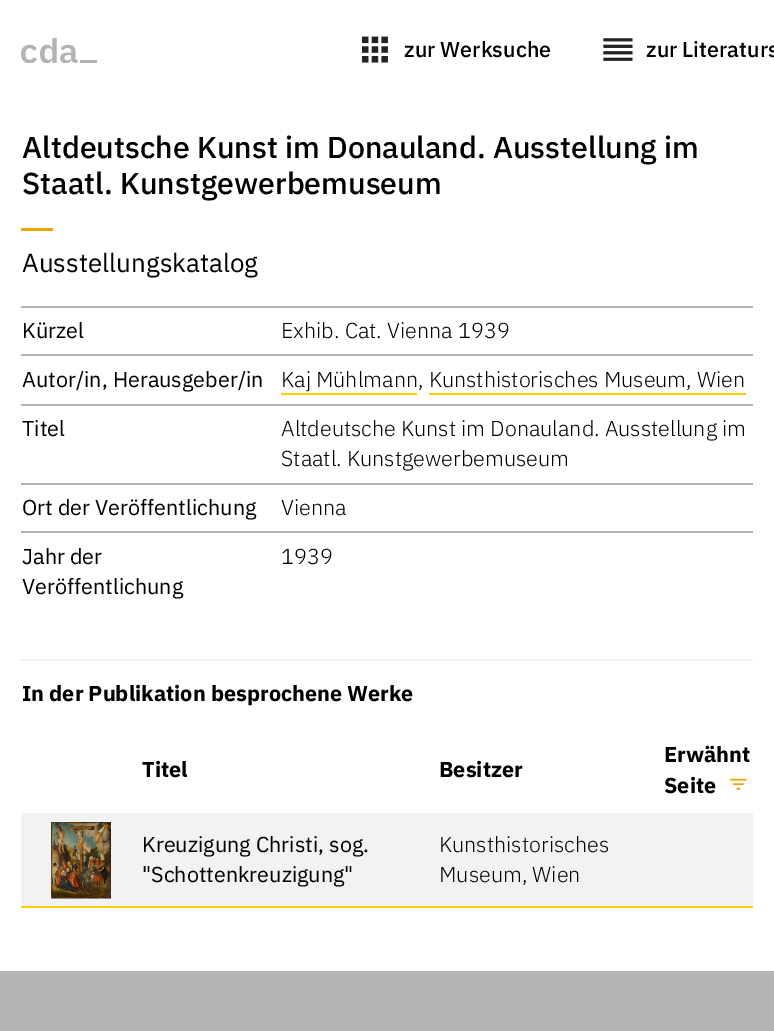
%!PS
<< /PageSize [774 1031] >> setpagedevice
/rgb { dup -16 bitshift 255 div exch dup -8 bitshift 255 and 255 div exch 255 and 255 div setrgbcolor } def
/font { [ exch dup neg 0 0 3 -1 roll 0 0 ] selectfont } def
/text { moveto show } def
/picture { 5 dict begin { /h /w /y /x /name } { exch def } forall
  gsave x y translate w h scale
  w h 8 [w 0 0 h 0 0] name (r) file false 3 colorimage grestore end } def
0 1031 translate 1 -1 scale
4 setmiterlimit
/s1 { /IBMPlexSans-Medium 21.6 font 16#000000 rgb } def
/s2 { /IBMPlexSans-Medium 30.25 font 16#000000 rgb } def
/s3 { /IBMPlexSans-Regular 26 font 16#000000 rgb } def
/s4 { /IBMPlexSans-Regular 21.6 font 16#000000 rgb } def
/s5 { /IBMPlexSans-Light 21.6 font 16#000000 rgb } def
/s6 { /IBMPlexSans-Bold 21.6 font 16#000000 rgb } def
16#FFFFFF rgb
0 0 774 1031 rectfill
(pic1.raw) 21 38 76 25 picture
(pic2.raw) 361 36 27 27 picture
s1
(zur Werksuche) 404 57 text
(pic3.raw) 603 38 30 23 picture
(zur Literaturs) 646 57 text
s2
(Altdeutsche Kunst im Donauland. Ausstellung im) 22 158 text
(Staatl. Kunstgewerbemuseum) 22 194 text
16#E8A60C rgb
21 228 32 3 rectfill
s3
(Ausstellungskatalog) 22 272 text
16#B3B3B3 rgb
21 306 732 2 rectfill
s4
(Kürzel) 22 338 text
s5
(Exhib. Cat. Vienna 1939) 281 338 text
16#B3B3B3 rgb
21 354 732 2 rectfill
s4
(Autor/in, Herausgeber/in) 22 387 text
s5
(Kaj Mühlmann, Kunsthistorisches Museum, Wien) 281 387 text
16#FFCC00 rgb
281 393 136 2 rectfill
429 393 317 2 rectfill
16#B3B3B3 rgb
21 404 732 2 rectfill
s4
(Titel) 22 436 text
s5
(Altdeutsche Kunst im Donauland. Ausstellung im) 281 436 text
(Staatl. Kunstgewerbemuseum) 281 466 text
16#B3B3B3 rgb
21 483 732 2 rectfill
s4
(Ort der Veröffentlichung) 22 515 text
s5
(Vienna) 281 515 text
16#B3B3B3 rgb
21 531 732 2 rectfill
s4
(Jahr der) 22 564 text
(Veröffentlichung) 22 594 text
s5
(1939) 281 564 text
16#F0F0F0 rgb
21 659 732 2 rectfill
s6
(In der Publikation besprochene Werke) 22 701 text
(Titel) 142 777 text
(Besitzer) 439 777 text
(Erwähnt) 664 762 text
(Seite) 664 793 text
(pic4.raw) 730 778 17 12 picture
16#F2F2F2 rgb
21 813 732 93 rectfill
16#FFCC00 rgb
21 906 732 2 rectfill
16#F5F5F5 rgb
44 821 75 2 rectfill
(pic5.raw) 51 822 60 77 picture
s4
(Kreuzigung Christi, sog.) 142 852 text
("Schottenkreuzigung") 142 882 text
s5
(Kunsthistorisches) 439 852 text
(Museum, Wien) 439 882 text
16#B4B4B4 rgb
0 971 774 60 rectfill
showpage
